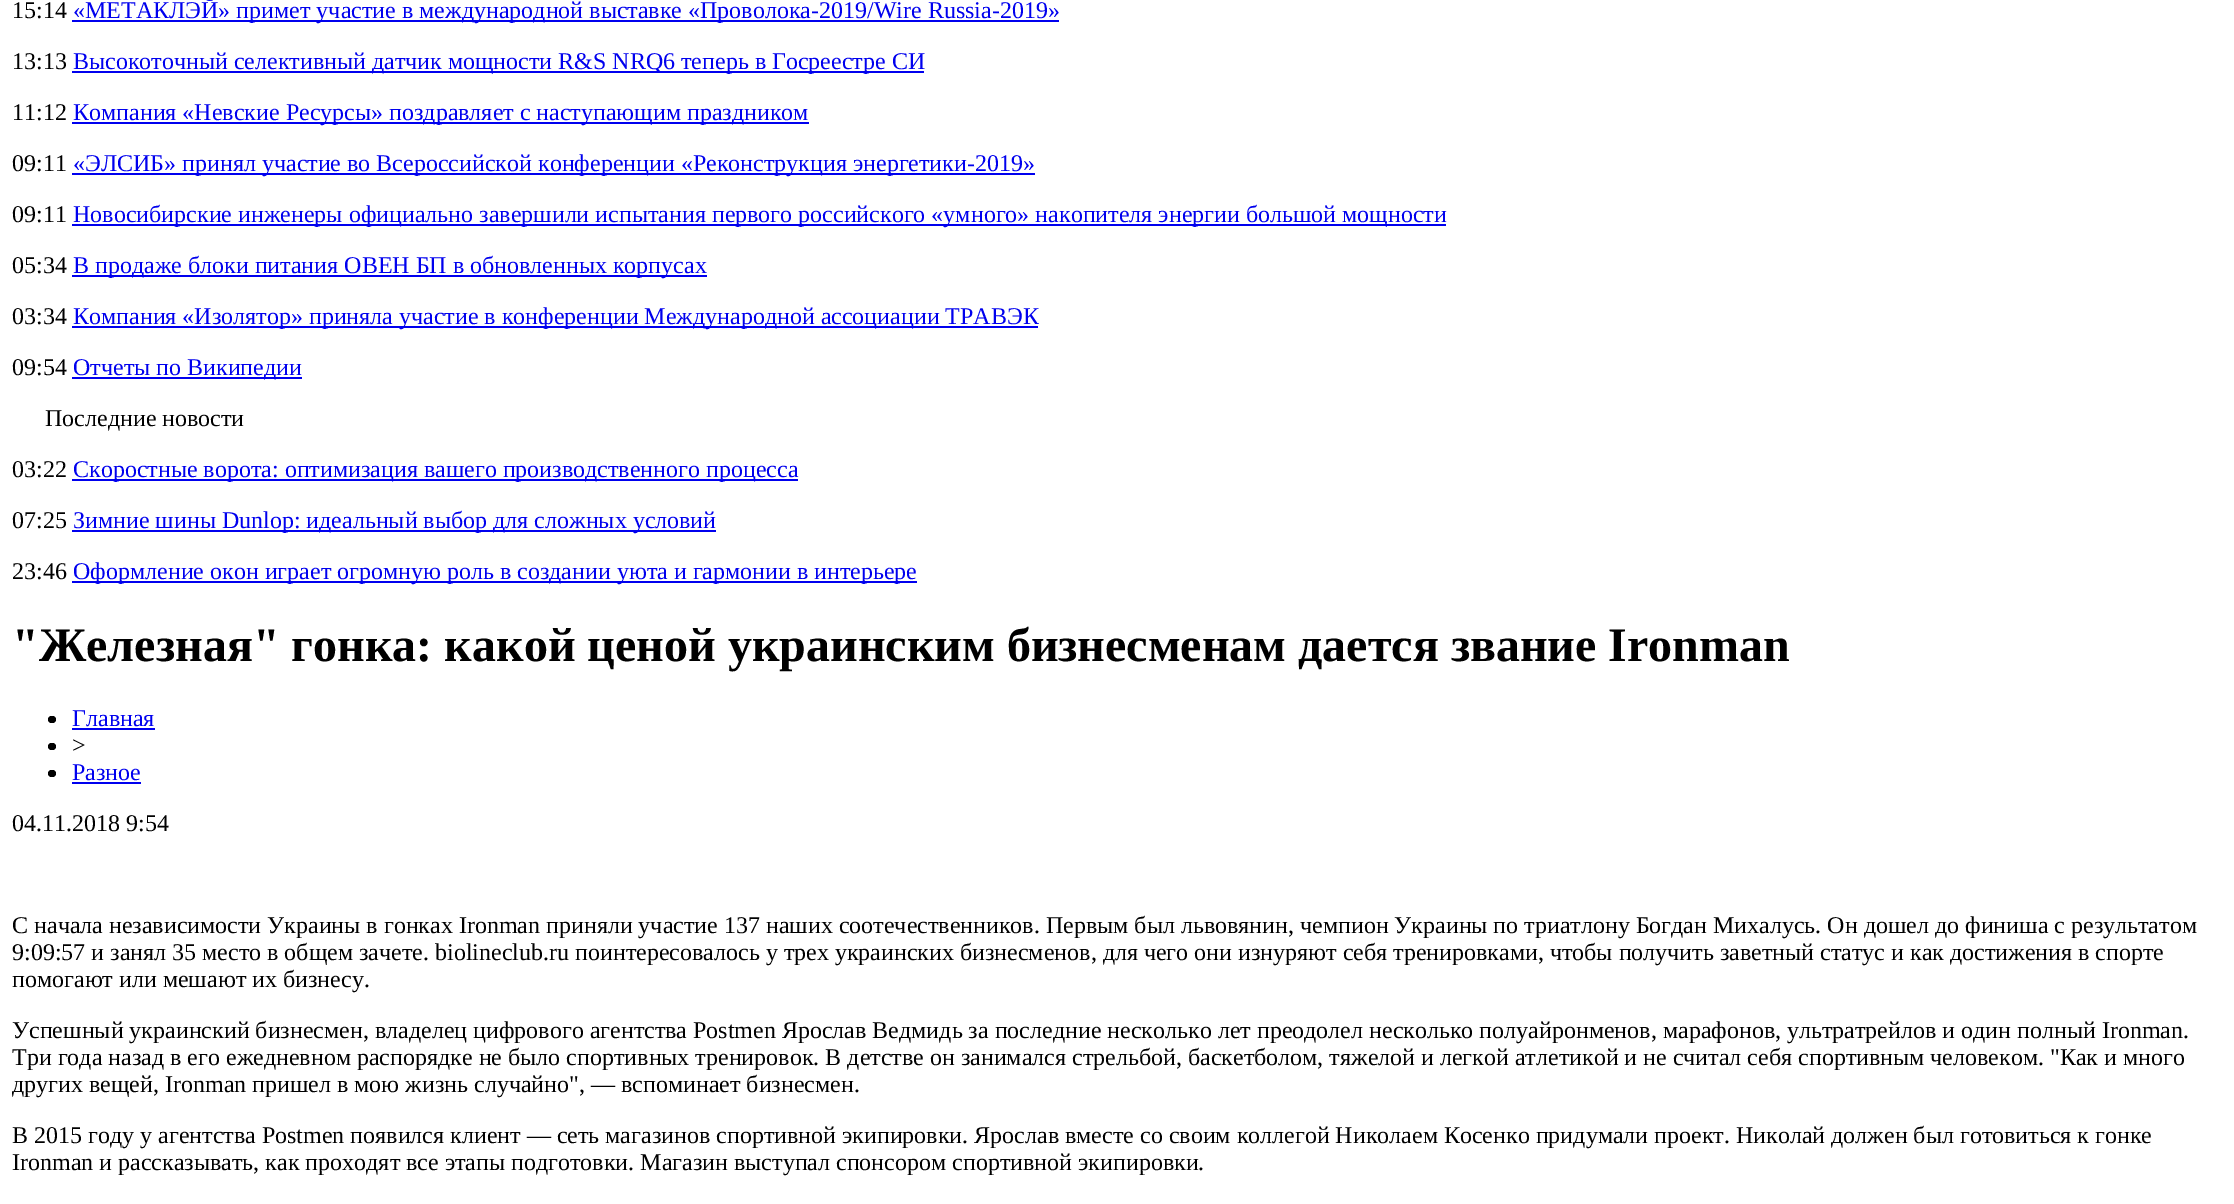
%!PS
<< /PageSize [2234 1204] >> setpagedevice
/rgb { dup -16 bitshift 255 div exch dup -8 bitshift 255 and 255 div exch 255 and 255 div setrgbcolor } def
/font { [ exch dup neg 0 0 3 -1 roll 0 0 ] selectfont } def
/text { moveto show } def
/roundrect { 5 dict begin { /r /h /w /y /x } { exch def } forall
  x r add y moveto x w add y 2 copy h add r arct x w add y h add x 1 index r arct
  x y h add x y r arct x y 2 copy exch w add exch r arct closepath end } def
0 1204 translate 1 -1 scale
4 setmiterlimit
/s1 { /LiberationSerif-Regular 24 font 16#000000 rgb } def
/s2 { /LiberationSerif-Regular 24 font 16#0000EE rgb } def
/s3 { /LiberationSerif-Bold 48 font 16#000000 rgb } def
16#FFFFFF rgb
0 0 2234 1204 rectfill
s1
(15:14) 12 18 text
16#0000EE rgb
72 20 987 2 rectfill
(«МЕТАКЛЭЙ» примет участие в международной выставке «Проволока-2019/Wire Russia-2019») 73 18 text
s1
(13:13) 12 69 text
16#0000EE rgb
72 71 852 2 rectfill
(Высокоточный селективный датчик мощности R&S NRQ6 теперь в Госреестре СИ) 73 69 text
s1
(11:12) 12 120 text
16#0000EE rgb
72 122 737 2 rectfill
(Компания «Невские Ресурсы» поздравляет с наступающим праздником) 73 120 text
s1
(09:11) 12 171 text
16#0000EE rgb
72 173 963 2 rectfill
(«ЭЛСИБ» принял участие во Всероссийской конференции «Реконструкция энергетики-2019») 73 171 text
s1
(09:11) 12 222 text
16#0000EE rgb
72 224 1374 2 rectfill
(Новосибирские инженеры официально завершили испытания первого российского «умного» накопителя энергии большой мощности) 73 222 text
s1
(05:34) 12 273 text
16#0000EE rgb
72 275 635 2 rectfill
(В продаже блоки питания ОВЕН БП в обновленных корпусах) 73 273 text
s1
(03:34) 12 324 text
16#0000EE rgb
72 326 966 2 rectfill
(Компания «Изолятор» приняла участие в конференции Международной ассоциации ТРАВЭК) 73 324 text
s1
(09:54) 12 375 text
16#0000EE rgb
72 377 230 2 rectfill
(Отчеты по Википедии) 73 375 text
s1
(Последние новости) 45 426 text
(03:22) 12 477 text
16#0000EE rgb
72 479 726 2 rectfill
(Скоростные ворота: оптимизация вашего производственного процесса) 73 477 text
s1
(07:25) 12 528 text
16#0000EE rgb
72 530 644 2 rectfill
(Зимние шины Dunlop: идеальный выбор для сложных условий) 73 528 text
s1
(23:46) 12 579 text
16#0000EE rgb
72 581 845 2 rectfill
(Оформление окон играет огромную роль в создании уюта и гармонии в интерьере) 73 579 text
s3
("Железная" гонка: какой ценой украинским бизнесменам дается звание Ironman) 12 661 text
48 716 8 7 3.5 roundrect fill
s2
(Главная) 72 726 text
72 728 83 2 rectfill
16#000000 rgb
48 743 8 7 3.5 roundrect fill
(>) 72 753 text
48 770 8 7 3.5 roundrect fill
s2
(Разное) 72 780 text
72 782 69 2 rectfill
s1
(04.11.2018 9:54) 12 831 text
(С начала независимости Украины в гонках Ironman приняли участие 137 наших соотечественников. Первым был львовянин, чемпион Украины по триатлону Богдан Михалусь. Он дошел до финиша с результатом) 12 933 text
(9:09:57 и занял 35 место в общем зачете. biolineclub.ru поинтересовалось у трех украинских бизнесменов, для чего они изнуряют себя тренировками, чтобы получить заветный статус и как достижения в спорте) 12 960 text
(помогают или мешают их бизнесу.) 12 987 text
(Успешный украинский бизнесмен, владелец цифрового агентства Postmen Ярослав Ведмидь за последние несколько лет преодолел несколько полуайронменов, марафонов, ультратрейлов и один полный Ironman.) 12 1038 text
(Три года назад в его ежедневном распорядке не было спортивных тренировок. В детстве он занимался стрельбой, баскетболом, тяжелой и легкой атлетикой и не считал себя спортивным человеком. "Как и много) 12 1065 text
(других вещей, Ironman пришел в мою жизнь случайно", — вспоминает бизнесмен.) 12 1092 text
(В 2015 году у агентства Postmen появился клиент — сеть магазинов спортивной экипировки. Ярослав вместе со своим коллегой Николаем Косенко придумали проект. Николай должен был готовиться к гонке) 12 1143 text
(Ironman и рассказывать, как проходят все этапы подготовки. Магазин выступал спонсором спортивной экипировки.) 12 1170 text
showpage
